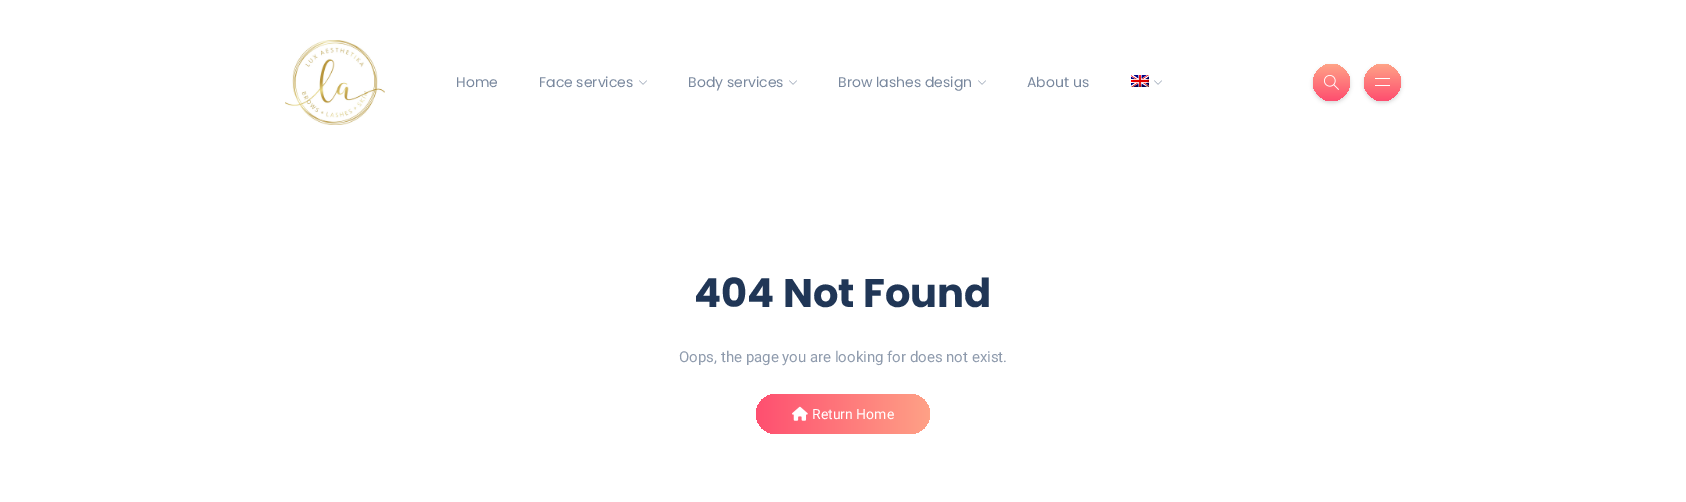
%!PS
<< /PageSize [1686 502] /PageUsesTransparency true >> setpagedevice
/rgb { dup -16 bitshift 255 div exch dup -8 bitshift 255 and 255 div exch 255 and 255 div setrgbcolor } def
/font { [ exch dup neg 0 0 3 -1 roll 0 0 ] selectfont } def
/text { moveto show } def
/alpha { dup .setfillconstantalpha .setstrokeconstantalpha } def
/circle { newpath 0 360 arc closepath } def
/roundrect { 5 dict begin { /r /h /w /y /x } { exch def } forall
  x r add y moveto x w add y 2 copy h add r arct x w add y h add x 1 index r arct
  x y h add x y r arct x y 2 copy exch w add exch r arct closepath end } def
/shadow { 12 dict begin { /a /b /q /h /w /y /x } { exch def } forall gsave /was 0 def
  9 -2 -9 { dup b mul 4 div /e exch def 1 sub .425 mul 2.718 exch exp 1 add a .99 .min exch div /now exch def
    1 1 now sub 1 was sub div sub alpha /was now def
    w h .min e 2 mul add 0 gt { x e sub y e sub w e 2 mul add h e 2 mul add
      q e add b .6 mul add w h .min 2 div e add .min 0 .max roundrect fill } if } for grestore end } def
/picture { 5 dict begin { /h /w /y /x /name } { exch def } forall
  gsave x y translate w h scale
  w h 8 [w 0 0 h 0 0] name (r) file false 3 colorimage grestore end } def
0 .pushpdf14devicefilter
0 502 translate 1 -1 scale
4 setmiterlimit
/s1 { /Poppins-Regular 14 font 16#79889E rgb } def
/s2 { /Poppins-Bold 40 font 16#203656 rgb } def
/s3 { /Roboto-Regular 15 font 16#8F9BAD rgb } def
/s4 { /Roboto-Regular 14 font 16#FFFFFF rgb } def
16#FFFFFF rgb
0 0 1686 502 rectfill
(pic1.raw) 285 40 100 85 picture
s1
(Home) 456 87 text
(Face services) 539 87 text
(pic2.raw) 639 80 8 5 picture
(Body services) 688 87 text
(pic2.raw) 789 80 8 5 picture
(Brow lashes design) 838 87 text
(pic2.raw) 978 80 8 5 picture
(About us) 1027 87 text
(pic3.raw) 1131 75 18 12 picture
(pic2.raw) 1154 80 8 5 picture
16#000000 rgb
1313 66 37 37 18.5 2 0.15 shadow
gsave 1331.5 82.5 18.5 circle clip newpath
<< /ShadingType 2 /ColorSpace /DeviceRGB /Coords [1332 138 1332 64] /Extend [true true] /Function << /FunctionType 3 /Domain [0 1] /Functions [<< /FunctionType 2 /Domain [0 1] /C0 [1 0.639 0.529] /C1 [0.996 0.31 0.439] /N 1 >> << /FunctionType 2 /Domain [0 1] /C0 [0.996 0.31 0.439] /C1 [1 0.639 0.529] /N 1 >>] /Bounds [0.51] /Encode [0 1 0 1] >> >> shfill grestore
(pic4.raw) 1324 75 15 15 picture
1364 66 37 37 18.5 2 0.15 shadow
gsave 1382.5 82.5 18.5 circle clip newpath
<< /ShadingType 2 /ColorSpace /DeviceRGB /Coords [1383 138 1383 64] /Extend [true true] /Function << /FunctionType 3 /Domain [0 1] /Functions [<< /FunctionType 2 /Domain [0 1] /C0 [1 0.639 0.529] /C1 [0.996 0.31 0.439] /N 1 >> << /FunctionType 2 /Domain [0 1] /C0 [0.996 0.31 0.439] /C1 [1 0.639 0.529] /N 1 >>] /Bounds [0.51] /Encode [0 1 0 1] >> >> shfill grestore
16#FFFFFF rgb
1375 78 15 1 rectfill
1375 85 15 1 rectfill
s2
(404 Not Found) 694 307 text
s3
(Oops, the page you are looking for does not exist.) 679 362 text
gsave 756 394 174 40 20 roundrect clip newpath
<< /ShadingType 2 /ColorSpace /DeviceRGB /Coords [756 414 1104 414] /Extend [true true] /Function << /FunctionType 3 /Domain [0 1] /Functions [<< /FunctionType 2 /Domain [0 1] /C0 [0.996 0.31 0.439] /C1 [1 0.639 0.529] /N 1 >> << /FunctionType 2 /Domain [0 1] /C0 [1 0.639 0.529] /C1 [0.996 0.31 0.439] /N 1 >>] /Bounds [0.51] /Encode [0 1 0 1] >> >> shfill grestore
(pic5.raw) 792 406 16 15 picture
s4
(Return Home) 812 419 text
.poppdf14devicefilter showpage
